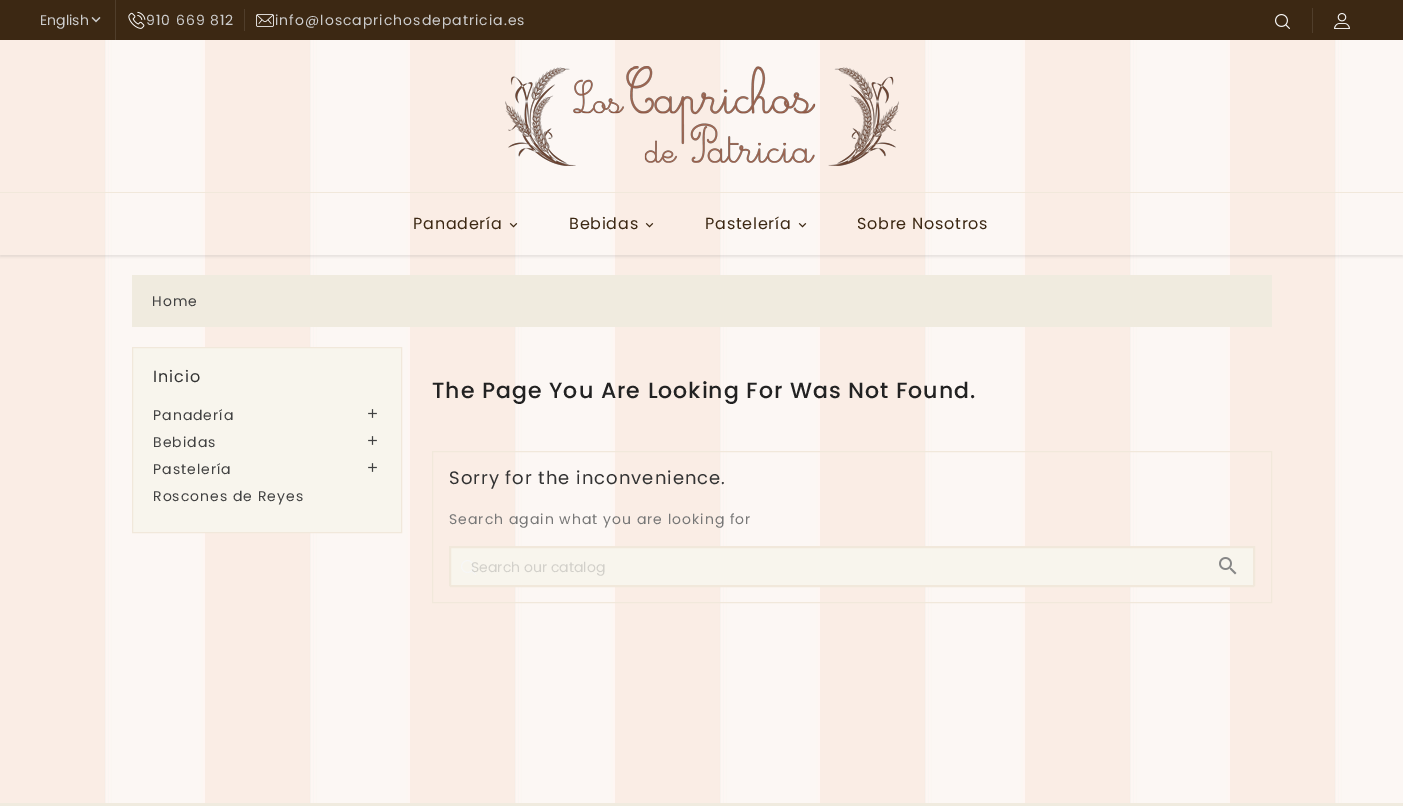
%!PS
<< /PageSize [1403 806] /PageUsesTransparency true >> setpagedevice
/rgb { dup -16 bitshift 255 div exch dup -8 bitshift 255 and 255 div exch 255 and 255 div setrgbcolor } def
/font { [ exch dup neg 0 0 3 -1 roll 0 0 ] selectfont } def
/text { moveto show } def
/alpha { dup .setfillconstantalpha .setstrokeconstantalpha } def
/roundrect { 5 dict begin { /r /h /w /y /x } { exch def } forall
  x r add y moveto x w add y 2 copy h add r arct x w add y h add x 1 index r arct
  x y h add x y r arct x y 2 copy exch w add exch r arct closepath end } def
/shadow { 12 dict begin { /a /b /q /h /w /y /x } { exch def } forall gsave /was 0 def
  9 -2 -9 { dup b mul 4 div /e exch def 1 sub .425 mul 2.718 exch exp 1 add a .99 .min exch div /now exch def
    1 1 now sub 1 was sub div sub alpha /was now def
    w h .min e 2 mul add 0 gt { x e sub y e sub w e 2 mul add h e 2 mul add
      q e add b .6 mul add w h .min 2 div e add .min 0 .max roundrect fill } if } for grestore end } def
/picture { 5 dict begin { /h /w /y /x /name } { exch def } forall
  gsave x y translate w h scale
  w h 8 [w 0 0 h 0 0] name (r) file false 3 colorimage grestore end } def
0 .pushpdf14devicefilter
0 806 translate 1 -1 scale
4 setmiterlimit
/s1 { /Poppins-Regular 14 font 16#CCCCCC rgb } def
/s2 { /Poppins-Regular 14 font 16#D2D0CA rgb } def
16#FFFFFF rgb
0 0 1403 806 rectfill
(pic1.raw) 0 255 1403 548 picture
(pic2.raw) 0 40 1403 152 picture
16#3C2813 rgb
0 0 1403 40 rectfill
16#503E2B rgb
115 0 1 40 rectfill
s1
(English) 40 25 text
(pic3.raw) 91 17 10 6 picture
16#503E2B rgb
244 9 1 22 rectfill
(pic4.raw) 128 11 18 18 picture
16#CCCCCC rgb
146 25 moveto 1 0 (910 669 812) ashow
(pic5.raw) 256 14 18 13 picture
275 25 moveto 1 0 (info@loscaprichosdepatricia.es) ashow
(pic6.raw) 1275 14 15 15 picture
16#503E2B rgb
1312 8 1 25 rectfill
(pic7.raw) 1334 13 16 16 picture
(pic8.raw) 505 66 394 100 picture
16#323232 rgb
0 194 1403 63 0 1 0.1 shadow
(pic9.raw) 0 193 1403 62 picture
16#F1E8DB rgb
0 192 1403 1 rectfill
/Poppins-Regular 16 font
16#3C2813 rgb
413 229 moveto 0.75 0 (Panadería) ashow
(pic10.raw) 509 223 9 5 picture
569 229 moveto 0.75 0 (Bebidas) ashow
(pic11.raw) 645 223 9 5 picture
705 229 moveto 0.75 0 (Pastelería) ashow
(pic12.raw) 798 223 9 5 picture
857 229 moveto 0.75 0 (Sobre Nosotros) ashow
16#F0EBDF rgb
132 275 1140 52 rectfill
/Poppins-Regular 14 font
16#414141 rgb
152 306 moveto 1 0 (Home) ashow
16#F8F5ED rgb
132.5 347.5 moveto 401.5 347.5 lineto 401.5 532.5 lineto 132.5 532.5 lineto closepath gsave fill grestore
16#F1E8DB rgb
stroke
/Poppins-Regular 16 font
16#333333 rgb
153 382 moveto 1 0 (Inicio) ashow
/Poppins-Regular 14 font
16#414141 rgb
153 420 moveto 1 0 (Panadería) ashow
(pic13.raw) 368 409 9 9 picture
153 447 moveto 1 0 (Bebidas) ashow
(pic13.raw) 368 436 9 9 picture
153 474 moveto 1 0 (Pastelería) ashow
(pic13.raw) 368 463 9 9 picture
153 501 moveto 1 0 (Roscones de Reyes) ashow
/Poppins-Medium 22 font
16#222222 rgb
432 398 moveto 1 0 (The Page You Are Looking For Was Not Found.) ashow
16#F1E8DB rgb
432.5 451.5 839 151 rectstroke
/Poppins-Regular 18 font
16#333333 rgb
449 484 moveto 1 0 (Sorry for the inconvenience.) ashow
/Poppins-Regular 14 font
16#777777 rgb
449 524 moveto 1 0 (Search again what you are looking for) ashow
16#F8F5ED rgb
451 548 802 37 rectfill
16#F1E8DB rgb
449.5 546.5 805 39 rectstroke
(pic14.raw) 461 560 15 15 picture
450.5 547.5 803 39 rectstroke
s2
(Search our catalog) 471 572 text
(pic15.raw) 1219 557 18 18 picture
16#F0EBDF rgb
0 803 1403 3 rectfill
.poppdf14devicefilter showpage
